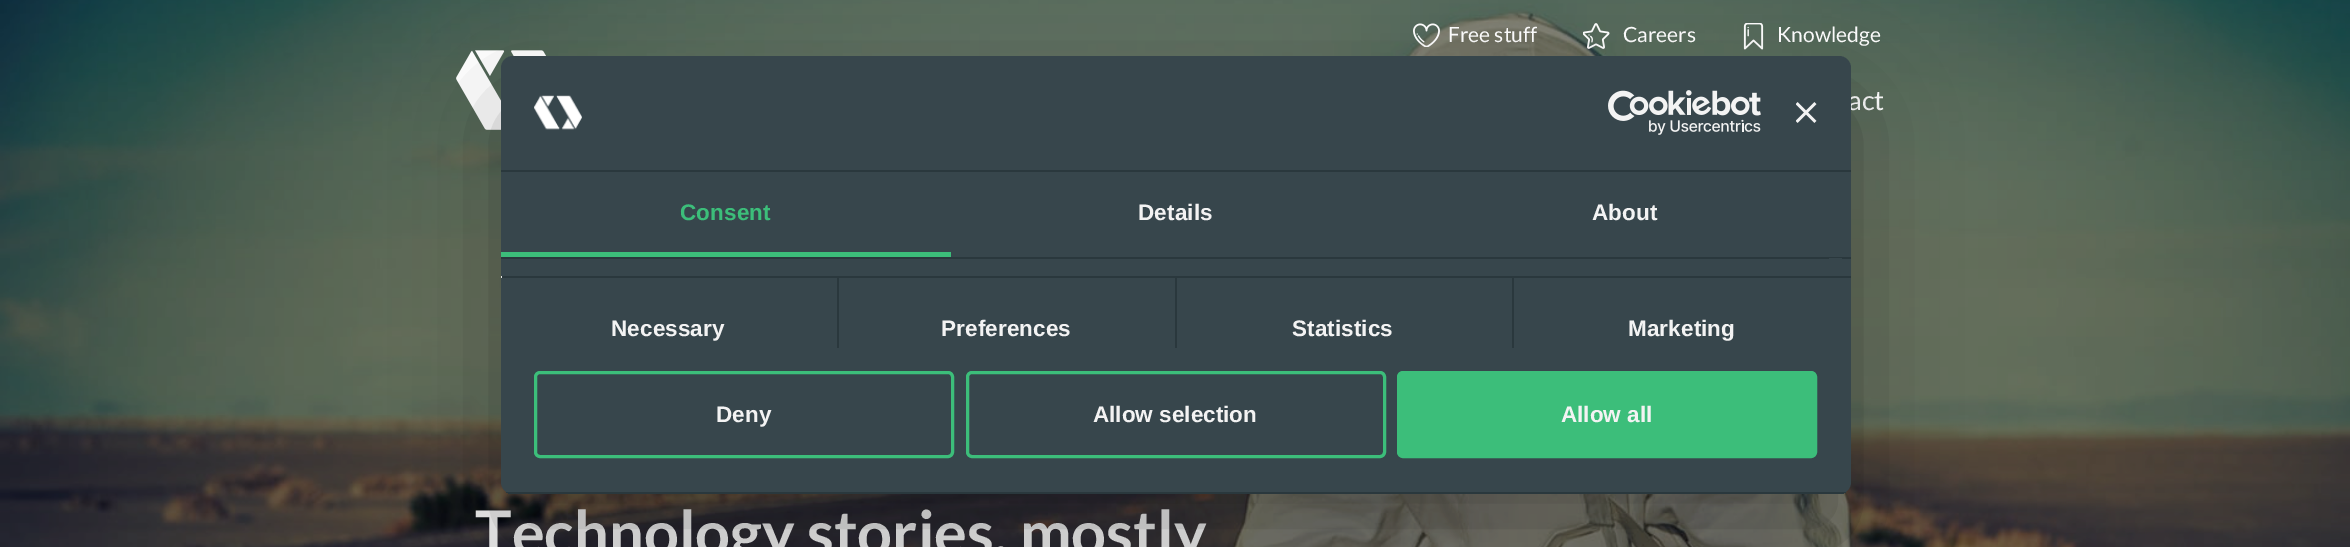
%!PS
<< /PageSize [2350 547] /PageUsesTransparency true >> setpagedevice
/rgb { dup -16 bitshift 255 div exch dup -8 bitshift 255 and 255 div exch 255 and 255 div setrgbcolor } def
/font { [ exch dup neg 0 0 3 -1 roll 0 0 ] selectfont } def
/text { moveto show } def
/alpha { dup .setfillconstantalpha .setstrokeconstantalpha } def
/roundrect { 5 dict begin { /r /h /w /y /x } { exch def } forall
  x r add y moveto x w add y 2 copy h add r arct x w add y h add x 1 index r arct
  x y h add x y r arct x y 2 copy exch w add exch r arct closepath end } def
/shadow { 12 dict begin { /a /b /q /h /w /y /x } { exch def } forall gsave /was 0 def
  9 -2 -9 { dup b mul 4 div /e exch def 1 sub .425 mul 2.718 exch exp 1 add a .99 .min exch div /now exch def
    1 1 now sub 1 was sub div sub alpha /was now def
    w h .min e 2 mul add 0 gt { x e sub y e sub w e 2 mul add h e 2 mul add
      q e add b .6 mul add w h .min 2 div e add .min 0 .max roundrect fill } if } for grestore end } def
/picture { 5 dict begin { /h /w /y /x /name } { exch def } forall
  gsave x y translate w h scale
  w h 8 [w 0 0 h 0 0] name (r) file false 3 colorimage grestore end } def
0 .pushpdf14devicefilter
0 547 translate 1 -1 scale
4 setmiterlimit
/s1 { /Lato-Regular 21 font 16#FFFFFF rgb } def
/s2 { /Lato-Regular 27 font 16#FFFFFF rgb } def
/s3 { /Lato-Bold 61.5 font 16#F3F3F3 rgb } def
/s4 { /LiberationSans-Bold 22.5 font 16#F3F3F3 rgb } def
16#FFFFFF rgb
0 0 2350 547 rectfill
(pic1.raw) 0 0 2350 547 picture
(pic2.raw) 456 50 90 80 picture
(pic3.raw) 1413 23 27 24 picture
s1
(Free stuff) 1448 42 text
(pic4.raw) 1583 23 27 26 picture
(Careers) 1623 42 text
(pic5.raw) 1743 23 21 27 picture
(Knowledge) 1777 42 text
s2
(act) 1848 110 text
s3
(Technology stories, mostly) 475 555 text
16#000000 rgb
501 104 1350 438 12 51 0.3 shadow
16#37464C rgb
501 56 1350 438 12 roundrect fill
16#2A383D rgb
501 170 1350 2 rectfill
(pic6.raw) 534 95 48 35 picture
(pic7.raw) 1608 90 153 45 picture
(pic8.raw) 1796 102 21 21 picture
501 257 1350 2 rectfill
16#3CBE7A rgb
501 252 450 5 rectfill
/LiberationSans-Bold 22.5 font
680 220 moveto 0.1 0 (Consent) ashow
16#F3F3F3 rgb
1138 220 moveto 0.1 0 (Details) ashow
1592 220 moveto 0.1 0 (About) ashow
16#2A383D rgb
501 276 1350 2 rectfill
16#37464C rgb
1829 258 13 1 rectfill
16#E5E5E5 rgb
501 276 1 2 rectfill
16#2A383D rgb
837 278 2 70 rectfill
16#F3F3F3 rgb
611 336 moveto 0.1 0 (Necessary) ashow
16#2A383D rgb
1175 278 2 70 rectfill
16#F3F3F3 rgb
941 336 moveto 0.1 0 (Preferences) ashow
16#2A383D rgb
1512 278 2 70 rectfill
16#F3F3F3 rgb
1292 336 moveto 0.1 0 (Statistics) ashow
1628 336 moveto 0.1 0 (Marketing) ashow
gsave
501 56 1350 438 12 roundrect clip newpath
16#2A383D rgb
501 492 1350 2 rectfill
grestore
16#3CBE7A rgb
3 setlinewidth
535.5 372.5 417 84 4.5 roundrect stroke
s4
(Deny) 716 422 text
16#3CBE7A rgb
967.5 372.5 417 84 4.5 roundrect stroke
s4
(Allow selection) 1093 422 text
16#3CBE7A rgb
1398.5 372.5 417 84 4.5 roundrect gsave fill grestore
stroke
s4
(Allow all) 1561 422 text
.poppdf14devicefilter showpage
